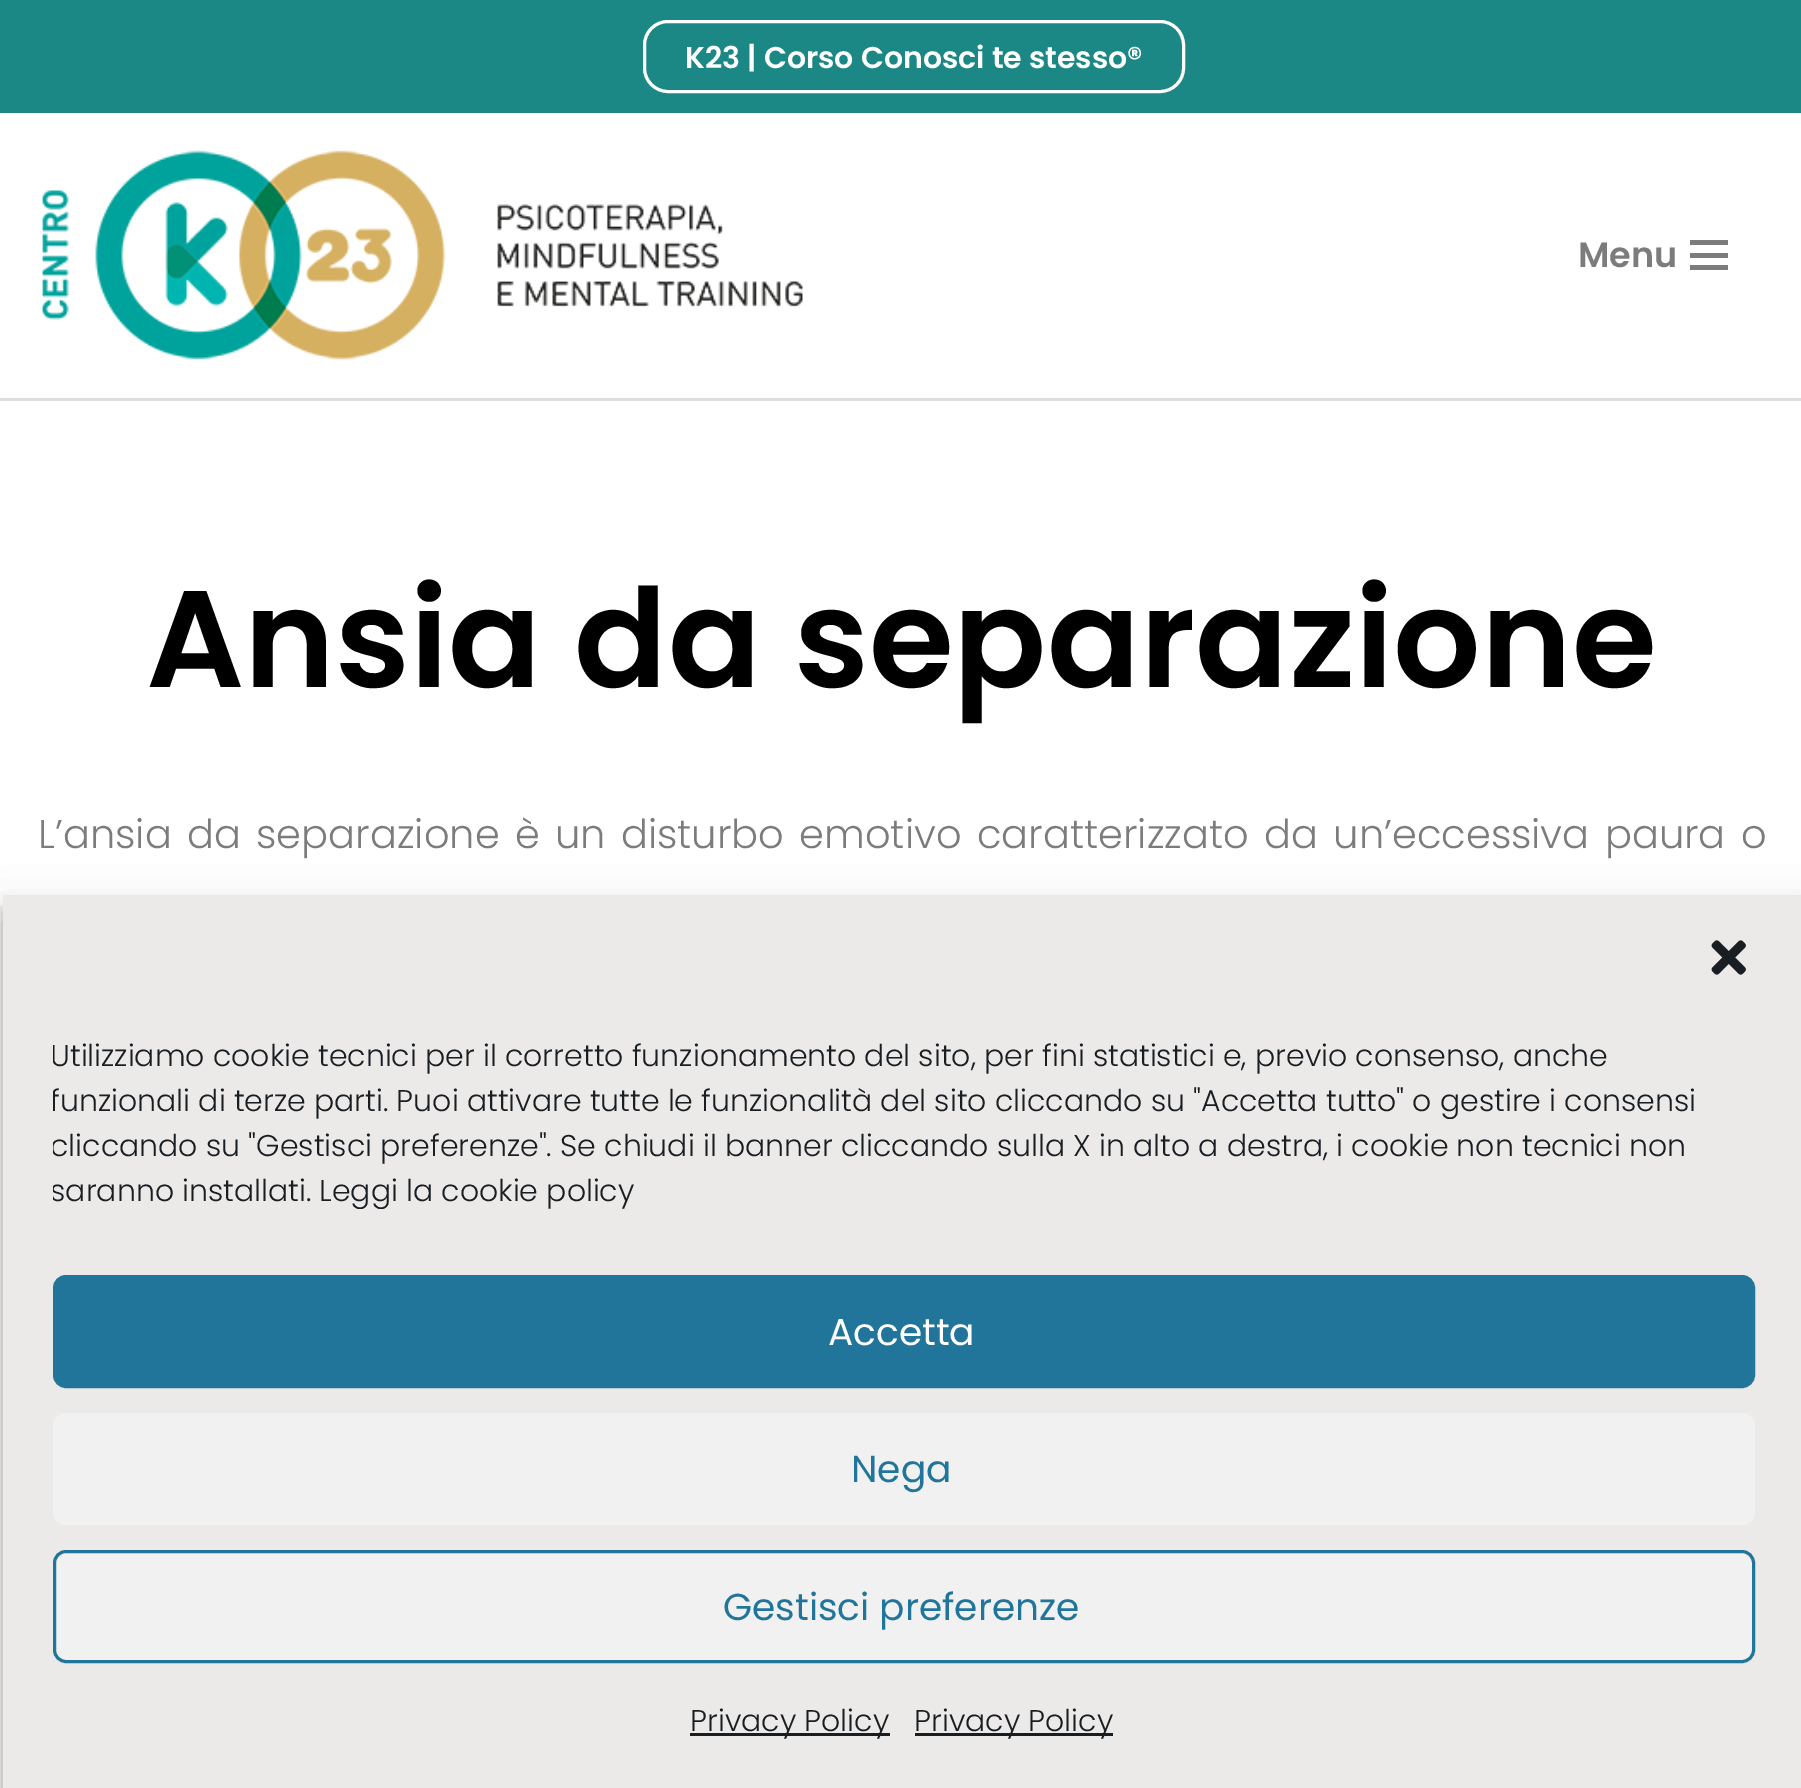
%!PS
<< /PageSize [1801 1788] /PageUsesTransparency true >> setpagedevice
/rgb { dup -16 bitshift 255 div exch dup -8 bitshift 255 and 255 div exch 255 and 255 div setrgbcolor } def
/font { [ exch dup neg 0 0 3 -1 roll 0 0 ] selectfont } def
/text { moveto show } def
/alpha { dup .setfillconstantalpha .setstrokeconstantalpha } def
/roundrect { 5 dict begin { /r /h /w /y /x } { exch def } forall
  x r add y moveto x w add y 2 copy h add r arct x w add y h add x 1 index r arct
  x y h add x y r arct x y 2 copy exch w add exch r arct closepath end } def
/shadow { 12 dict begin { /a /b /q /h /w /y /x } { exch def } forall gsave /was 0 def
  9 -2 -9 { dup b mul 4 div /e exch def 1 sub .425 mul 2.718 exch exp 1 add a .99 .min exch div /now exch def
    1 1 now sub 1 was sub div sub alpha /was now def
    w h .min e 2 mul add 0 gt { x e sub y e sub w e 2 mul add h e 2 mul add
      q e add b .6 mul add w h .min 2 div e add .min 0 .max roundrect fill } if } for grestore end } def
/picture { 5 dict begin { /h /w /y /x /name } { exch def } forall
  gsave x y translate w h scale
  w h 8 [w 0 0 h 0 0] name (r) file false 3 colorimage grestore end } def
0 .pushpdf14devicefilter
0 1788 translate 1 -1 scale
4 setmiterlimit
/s1 { /Poppins-SemiBold 30 font 16#FFFFFF rgb } def
/s2 { /Poppins-SemiBold 35 font 16#7C7C7C rgb } def
/s3 { /Poppins-SemiBold 137.5 font 16#000000 rgb } def
/s4 { /Poppins-Light 30 font 16#191E23 rgb } def
/s5 { /Poppins-Regular 37.5 font 16#FFFFFF rgb } def
/s6 { /Poppins-Regular 37.5 font 16#21759B rgb } def
16#FFFFFF rgb
0 0 1801 1788 rectfill
16#1B8885 rgb
0 0 1801 113 rectfill
16#FFFFFF rgb
3 setlinewidth
644.5 21.5 539 70 23.5 roundrect stroke
s1
(K23 | Corso Conosci te stesso®) 685 68 text
16#DDDDDD rgb
0 398 1801 3 rectfill
(pic1.raw) 42 150 761 210 picture
s2
(Menu) 1578 267 text
1690 240 38 5 rectfill
1690 253 38 5 rectfill
1690 265 38 5 rectfill
s3
(Ansia da separazione) 146 687 text
/Poppins-Light 40 font
16#7C7C7C rgb
38 848 moveto 4.25 0 32 (L’ansia da separazione è un disturbo emotivo caratterizzato da un’eccessiva paura o) widthshow
16#000000 rgb
3 910 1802 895 0 7.5 0.23 shadow
3 920 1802 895 0 25 0.19 shadow
16#ECE9E9 rgb
3 895 1798 893 rectfill
(pic2.raw) 1711 940 35 35 picture
gsave
53 1033 1702 192 rectclip
s4
(Utilizziamo cookie tecnici per il corretto funzionamento del sito, per fini statistici e, previo consenso, anche) 50 1066 text
(funzionali di terze parti. Puoi attivare tutte le funzionalità del sito cliccando su "Accetta tutto" o gestire i consensi) 50 1111 text
(cliccando su "Gestisci preferenze". Se chiudi il banner cliccando sulla X in alto a destra, i cookie non tecnici non) 50 1156 text
(saranno installati.) 50 1201 text
grestore
s4
(Leggi la cookie policy) 319 1201 text
16#21759B rgb
54.5 1276.5 1699 110 11.5 roundrect gsave fill grestore
stroke
s5
(Accetta) 828 1345 text
16#F1F1F1 rgb
53 1413 1702 112 13 roundrect fill
s6
(Nega) 851 1482 text
16#F1F1F1 rgb
54.5 1551.5 1699 110 11.5 roundrect gsave fill grestore
16#21759B rgb
stroke
(Gestisci preferenze) 723 1620 text
16#191E23 rgb
690 1733 200 3 rectfill
s4
(Privacy Policy) 690 1731 text
915 1733 198 3 rectfill
(Privacy Policy) 914 1731 text
.poppdf14devicefilter showpage
